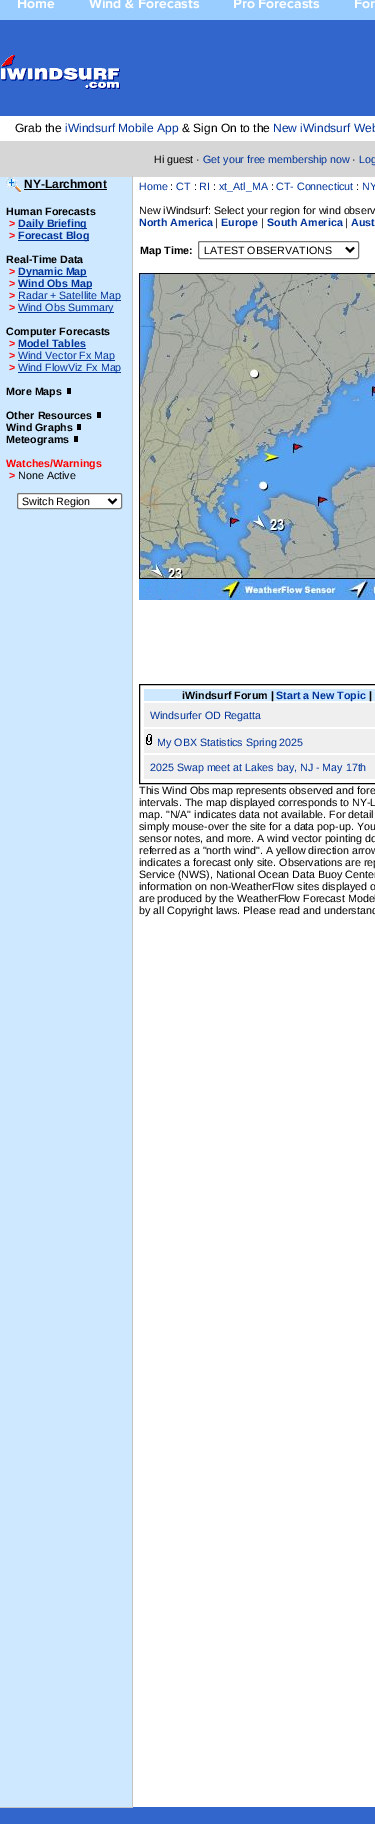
%!PS
<< /PageSize [375 1824] >> setpagedevice
/rgb { dup -16 bitshift 255 div exch dup -8 bitshift 255 and 255 div exch 255 and 255 div setrgbcolor } def
/font { [ exch dup neg 0 0 3 -1 roll 0 0 ] selectfont } def
/text { moveto show } def
/roundrect { 5 dict begin { /r /h /w /y /x } { exch def } forall
  x r add y moveto x w add y 2 copy h add r arct x w add y h add x 1 index r arct
  x y h add x y r arct x y 2 copy exch w add exch r arct closepath end } def
/picture { 5 dict begin { /h /w /y /x /name } { exch def } forall
  gsave x y translate w h scale
  w h 8 [w 0 0 h 0 0] name (r) file false 3 colorimage grestore end } def
0 1824 translate 1 -1 scale
4 setmiterlimit
/s1 { /ProximaNova-Bold 14 font 16#FFFFFF rgb } def
/s2 { /LiberationSans-Regular 12 font 16#000000 rgb } def
/s3 { /LiberationSans-Regular 12 font 16#003399 rgb } def
/s4 { /LiberationSans-Regular 10.7 font 16#000000 rgb } def
/s5 { /LiberationSans-Regular 10.7 font 16#003399 rgb } def
/s6 { /LiberationSans-Bold 12 font 16#000000 rgb } def
/s7 { /LiberationSans-Bold 10.7 font 16#000000 rgb } def
/s8 { /LiberationSans-Bold 10.7 font 16#FF0000 rgb } def
/s9 { /LiberationSans-Bold 10.7 font 16#003399 rgb } def
16#3366CC rgb
0 0 375 1824 rectfill
16#99CCFF rgb
0 0 375 20 rectfill
s1
(Home) 17 8 text
(Wind & Forecasts) 89 8 text
(Pro Forecasts) 233 8 text
(For) 354 8 text
(pic1.raw) 1 55 119 34 picture
0 116 375 25 rectfill
s2
(Grab the) 15 132 text
s3
(iWindsurf Mobile App) 65 132 text
s2
(& Sign On to the) 182 132 text
s3
(New iWindsurf Web) 273 132 text
16#D6D6D6 rgb
0 141 375 36 rectfill
s4
(Hi guest ·) 154 163 text
s5
(Get your free membership now) 203 163 text
s4
(·) 352 163 text
s5
(Log) 359 163 text
16#CEE9FF rgb
0 177 132 1630 rectfill
16#C4C4C4 rgb
132 176 1 1632 rectfill
0 1807 133 1 rectfill
(pic2.raw) 6 177 15 16 picture
s6
(NY-Larchmont) 24 188 text
24 189 83 1 rectfill
s7
(Human Forecasts) 6 215 text
s8
(>) 9 227 text
16#003399 rgb
18 228 69 1 rectfill
(Daily Briefing) 18 227 text
s8
(>) 9 239 text
16#003399 rgb
18 240 71 1 rectfill
(Forecast Blog) 18 239 text
s7
(Real-Time Data) 6 263 text
s8
(>) 9 275 text
16#003399 rgb
18 276 69 1 rectfill
(Dynamic Map) 18 275 text
s8
(>) 9 287 text
16#003399 rgb
18 288 74 1 rectfill
(Wind Obs Map) 18 287 text
s8
(>) 9 299 text
16#003399 rgb
18 300 103 1 rectfill
s5
(Radar + Satellite Map) 18 299 text
s8
(>) 9 311 text
16#003399 rgb
18 312 96 1 rectfill
s5
(Wind Obs Summary) 18 311 text
s7
(Computer Forecasts) 6 335 text
s8
(>) 9 347 text
s9
(Model Tables) 18 347 text
18 348 68 1 rectfill
s8
(>) 9 359 text
16#003399 rgb
18 360 97 1 rectfill
s5
(Wind Vector Fx Map) 18 359 text
s8
(>) 9 371 text
16#003399 rgb
18 372 103 1 rectfill
s5
(Wind FlowViz Fx Map) 18 371 text
s7
(More Maps) 6 395 text
67 388 4 6 rectfill
(Other Resources) 6 419 text
97 412 4 6 rectfill
(Wind Graphs) 6 431 text
77 424 4 6 rectfill
(Meteograms) 6 443 text
74 436 4 6 rectfill
s8
(Watches/Warnings) 6 467 text
(>) 9 479 text
s4
(None Active) 18 479 text
16#FFFFFF rgb
17.5 493.5 104 15 1.5 roundrect gsave fill grestore
16#767676 rgb
stroke
16#000000 rgb
2 setlinewidth
108.5 499 moveto 112.5 503 lineto 116.5 499 lineto stroke
(Switch Region) 22 505 text
16#FFFFFF rgb
133 177 242 1630 rectfill
s5
(Home) 139 190 text
s4
(:) 170 190 text
s5
(CT) 176 190 text
s4
(:) 194 190 text
s5
(RI) 199 190 text
s4
(:) 213 190 text
s5
(xt_Atl_MA) 219 190 text
s4
(:) 271 190 text
s5
(CT- Connecticut) 276 190 text
s4
(:) 356 190 text
s5
(NY) 362 190 text
s4
(New iWindsurf: Select your region for wind observ) 139 214 text
s9
(North America) 139 226 text
s4
(|) 215 226 text
s9
(Europe) 221 226 text
s4
(|) 261 226 text
s9
(South America) 267 226 text
s4
(|) 345 226 text
s9
(Aust) 351 226 text
s7
(Map Time:) 140 254 text
16#767676 rgb
1 setlinewidth
198.5 241.5 160 17 1.5 roundrect stroke
16#000000 rgb
2 setlinewidth
346 247.5 moveto 350 251.5 lineto 354 247.5 lineto stroke
s4
(LATEST OBSERVATIONS) 204 254 text
(pic3.raw) 139 273 236 306 picture
(pic4.raw) 139 579 236 21 picture
1 setlinewidth
139.5 684.5 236 99 rectstroke
16#CEE9FF rgb
144 689 231 12 rectfill
s7
(iWindsurf Forum |) 182 699 text
s9
(Start a New Topic) 276 699 text
s7
(|) 369 699 text
16#EFEFEF rgb
144 703 231 24 rectfill
s5
(Windsurfer OD Regatta) 150 719 text
16#EFEFEF rgb
144 729 231 24 rectfill
(pic5.raw) 146 734 6 11 picture
s5
(My OBX Statistics Spring 2025) 157 746 text
16#EFEFEF rgb
144 755 231 24 rectfill
s5
(2025 Swap meet at Lakes bay, NJ - May 17th) 150 771 text
s4
(This Wind Obs map represents observed and fore) 139 794 text
(intervals. The map displayed corresponds to NY-L) 139 806 text
(map. "N/A" indicates data not available. For detail) 139 818 text
(simply mouse-over the site for a data pop-up. You) 139 830 text
(sensor notes, and more. A wind vector pointing do) 139 842 text
(referred as a "north wind". A yellow direction arrow) 139 854 text
(indicates a forecast only site. Observations are rep) 139 866 text
(Service \(NWS\), National Ocean Data Buoy Center) 139 878 text
(information on non-WeatherFlow sites displayed o) 139 890 text
(are produced by the WeatherFlow Forecast Model) 139 902 text
(by all Copyright laws. Please read and understand) 139 914 text
showpage
